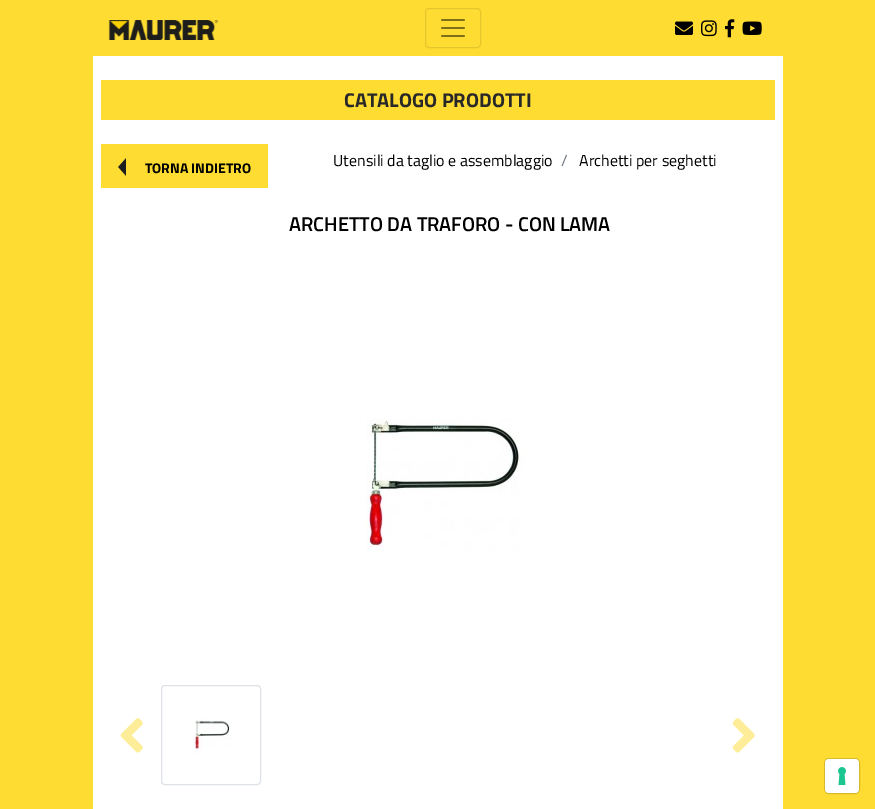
%!PS
<< /PageSize [875 809] >> setpagedevice
/rgb { dup -16 bitshift 255 div exch dup -8 bitshift 255 and 255 div exch 255 and 255 div setrgbcolor } def
/font { [ exch dup neg 0 0 3 -1 roll 0 0 ] selectfont } def
/text { moveto show } def
/roundrect { 5 dict begin { /r /h /w /y /x } { exch def } forall
  x r add y moveto x w add y 2 copy h add r arct x w add y h add x 1 index r arct
  x y h add x y r arct x y 2 copy exch w add exch r arct closepath end } def
/picture { 5 dict begin { /h /w /y /x /name } { exch def } forall
  gsave x y translate w h scale
  w h 8 [w 0 0 h 0 0] name (r) file false 3 colorimage grestore end } def
0 809 translate 1 -1 scale
4 setmiterlimit
/s1 { /TitilliumWeb-Bold 20 font 16#282828 rgb } def
/s2 { /TitilliumWeb-Bold 14 font 16#000000 rgb } def
/s3 { /TitilliumWeb-Regular 16 font 16#000000 rgb } def
/s4 { /TitilliumWeb-Regular 16 font 16#6C757D rgb } def
/s5 { /TitilliumWeb-SemiBold 20 font 16#000000 rgb } def
16#FEDC32 rgb
0 0 875 809 rectfill
(pic1.raw) 108 20 111 20 picture
16#E5C62D rgb
425.5 8.5 55 39 3.5 roundrect stroke
(pic2.raw) 441 19 24 18 picture
(pic3.raw) 675 21 18 14 picture
(pic4.raw) 701 20 16 17 picture
(pic5.raw) 725 19 10 19 picture
(pic6.raw) 742 21 20 14 picture
16#FFFFFF rgb
93 56 690 753 rectfill
16#FEDC32 rgb
101 80 674 40 rectfill
s1
(CATALOGO PRODOTTI) 344 107 text
16#FEDC32 rgb
101 144 167 44 rectfill
(pic7.raw) 118 158 8 18 picture
s2
(TORNA INDIETRO) 145 173 text
s3
(Utensili da taglio e assemblaggio) 333 166 text
s4
(/) 561 166 text
s3
(Archetti per seghetti) 579 166 text
s5
(ARCHETTO DA TRAFORO - CON LAMA) 289 231 text
(pic8.raw) 366 418 159 135 picture
(pic9.raw) 120 718 23 35 picture
16#DEE2E6 rgb
161.5 685.5 99 99 3.5 roundrect stroke
(pic10.raw) 194 719 37 35 picture
(pic11.raw) 732 718 23 35 picture
16#D8BB2B rgb
824.5 758.5 35 35 4.5 roundrect stroke
16#FFFFFF rgb
825 759 34 34 4 roundrect fill
(pic12.raw) 838 767 8 18 picture
showpage
